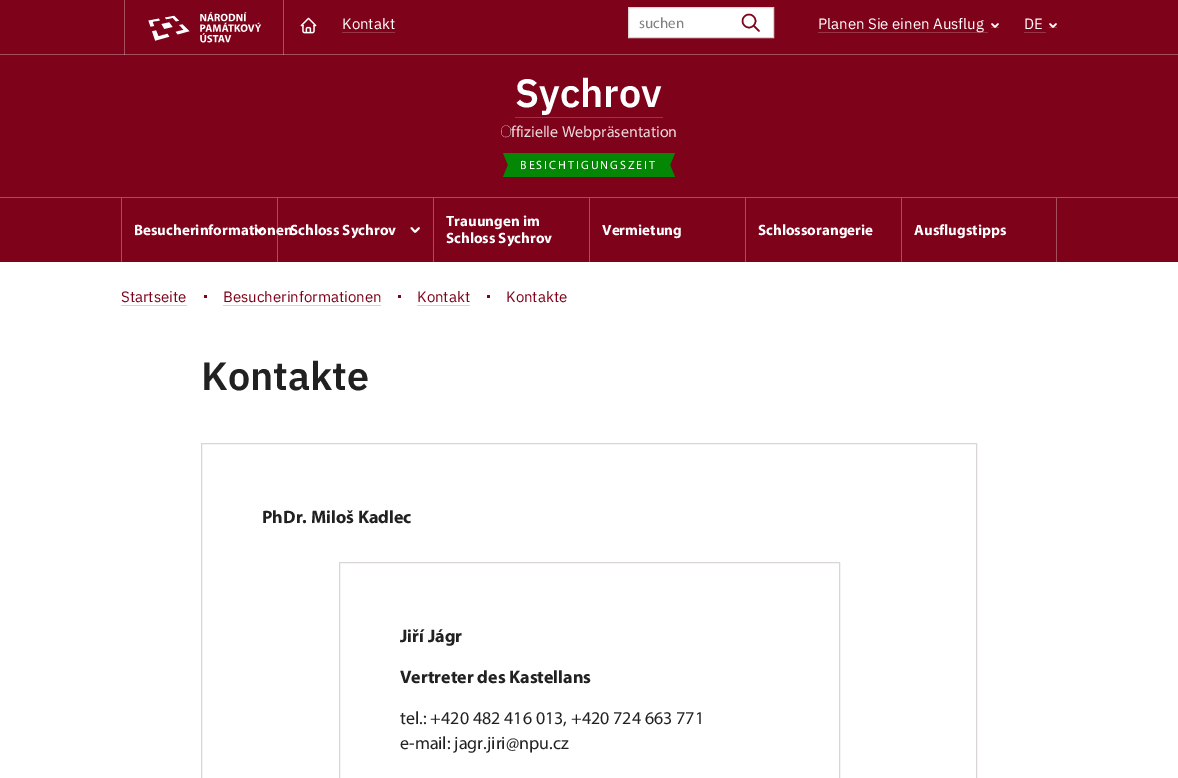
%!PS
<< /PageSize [1178 778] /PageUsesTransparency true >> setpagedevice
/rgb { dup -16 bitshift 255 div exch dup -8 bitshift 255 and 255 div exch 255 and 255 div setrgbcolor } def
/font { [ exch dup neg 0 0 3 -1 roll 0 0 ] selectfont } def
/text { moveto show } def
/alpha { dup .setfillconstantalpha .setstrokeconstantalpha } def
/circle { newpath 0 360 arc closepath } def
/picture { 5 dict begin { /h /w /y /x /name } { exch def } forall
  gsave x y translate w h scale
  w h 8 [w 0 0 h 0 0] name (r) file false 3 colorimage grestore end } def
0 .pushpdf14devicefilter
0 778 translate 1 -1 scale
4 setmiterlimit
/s1 { /IBMPlexSans-Regular 15 font 16#FFFFFF rgb } def
/s2 { /Myriad-Regular 15 font 16#808080 rgb } def
/s3 { /IBMPlexSans-SemiBold 39.5 font 16#FFFFFF rgb } def
/s4 { /NotoSans-Thin 16 font 16#ECD9DD rgb } def
/s5 { /Myriad-Regular 16 font 16#ECD9DD rgb } def
/s6 { /Myriad-Bold 15 font 16#FFFFFF rgb } def
/s7 { /IBMPlexSans-Regular 15 font 16#7E0219 rgb } def
/s8 { /IBMPlexSans-SemiBold 39.5 font 16#212121 rgb } def
/s9 { /Myriad-Bold 18 font 16#212121 rgb } def
/s10 { /Myriad-Regular 18 font 16#212121 rgb } def
16#FFFFFF rgb
0 0 1178 778 rectfill
16#7E0219 rgb
0 0 1178 262 rectfill
16#A54E5E rgb
124 0 1 55 rectfill
283 0 1 55 rectfill
0 54 1178 1 rectfill
16#C0838E rgb
124 54 1 1 rectfill
283 54 1 1 rectfill
(pic1.raw) 148 12 114 31 picture
(pic2.raw) 300 17 17 17 picture
s1
(Kontakt) 342 29 text
16#983547 rgb
342 32 53 1 rectfill
16#FFFFFF rgb
628.5 7.5 moveto 773.5 7.5 lineto 773.5 37.5 lineto 628.5 37.5 lineto closepath gsave fill grestore
16#DAD6D6 rgb
stroke
s2
(suchen) 639 28 text
16#7E0219 rgb
1.5 setlinewidth
749 21 6.5 circle stroke
1 setlinecap
1 setlinejoin
759 31 moveto 754 26 lineto stroke
16#983547 rgb
818 32 170 1 rectfill
s1
(Planen Sie einen Ausflug) 818 29 text
16#983547 rgb
991 27 8 1 rectfill
16#FFFFFF rgb
998 24 moveto 995 27 lineto 992 24 lineto stroke
(DE) 1024 29 text
16#983547 rgb
1024 32 22 1 rectfill
1049 27 8 1 rectfill
16#FFFFFF rgb
1056 24 moveto 1053 27 lineto 1050 24 lineto stroke
16#A54E5E rgb
0 197 1178 1 rectfill
s3
(Sychrov) 515 107 text
16#983547 rgb
515 117 148 1 rectfill
s4
(O) 500 137 text
s5
(ffizielle Webpräsentation) 511 137 text
16#038705 rgb
513 153 152 24 rectfill
503 153 moveto 513 153 lineto 508 165 lineto closepath fill
508 153 5 24 rectfill
513 177 moveto 503 177 lineto 508 165 lineto closepath fill
/Myriad-Regular 12 font
16#FFFFFF rgb
520 169 moveto 2 0 (BESICHTIGUNGSZEIT) ashow
16#038705 rgb
665 153 moveto 675 153 lineto 670 165 lineto closepath 675 177 moveto 665 177 lineto 670 165 lineto closepath fill
665 153 5 24 rectfill
16#A54E5E rgb
121 198 1 64 rectfill
s6
(Besucherinformationen) 134 235 text
1.8 setlinewidth
263 228 moveto 259 232 lineto 255.5 228 lineto stroke
0.3 alpha
277 198 1 64 rectfill
1 alpha
(Schloss Sychrov) 290 235 text
419 228 moveto 415 232 lineto 411.5 228 lineto stroke
16#A54E5E rgb
433 198 1 64 rectfill
s6
(Trauungen im) 446 226 text
(Schloss Sychrov) 446 243 text
16#A54E5E rgb
589 198 1 64 rectfill
s6
(Vermietung) 602 235 text
16#A54E5E rgb
745 198 1 64 rectfill
s6
(Schlossorangerie) 758 235 text
16#A54E5E rgb
1056 198 1 64 rectfill
901 198 1 64 rectfill
s6
(Ausflugstipps) 914 235 text
s7
(Startseite) 121 302 text
16#E5CCD1 rgb
121 305 66 1 rectfill
16#7E0219 rgb
204 295 3 3 rectfill
(Besucherinformationen) 223 302 text
16#E5CCD1 rgb
223 305 158 1 rectfill
16#7E0219 rgb
398 295 3 3 rectfill
(Kontakt) 417 302 text
16#E5CCD1 rgb
417 305 53 1 rectfill
16#7E0219 rgb
487 295 3 3 rectfill
(Kontakte) 506 302 text
s8
(Kontakte) 201 390 text
16#DAD6D6 rgb
1 setlinewidth
0 setlinecap
0 setlinejoin
201.5 443.5 775 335 rectstroke
s9
(PhDr. Miloš Kadlec) 262 523 text
16#DAD6D6 rgb
339.5 562.5 500 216 rectstroke
s9
(Jiří Jágr) 400 642 text
(Vertreter des Kastellans) 400 683 text
s10
(tel.: +420 482 416 013, +420 724 663 771) 400 724 text
(e-mail: jagr.jiri@npu.cz) 400 749 text
.poppdf14devicefilter showpage
